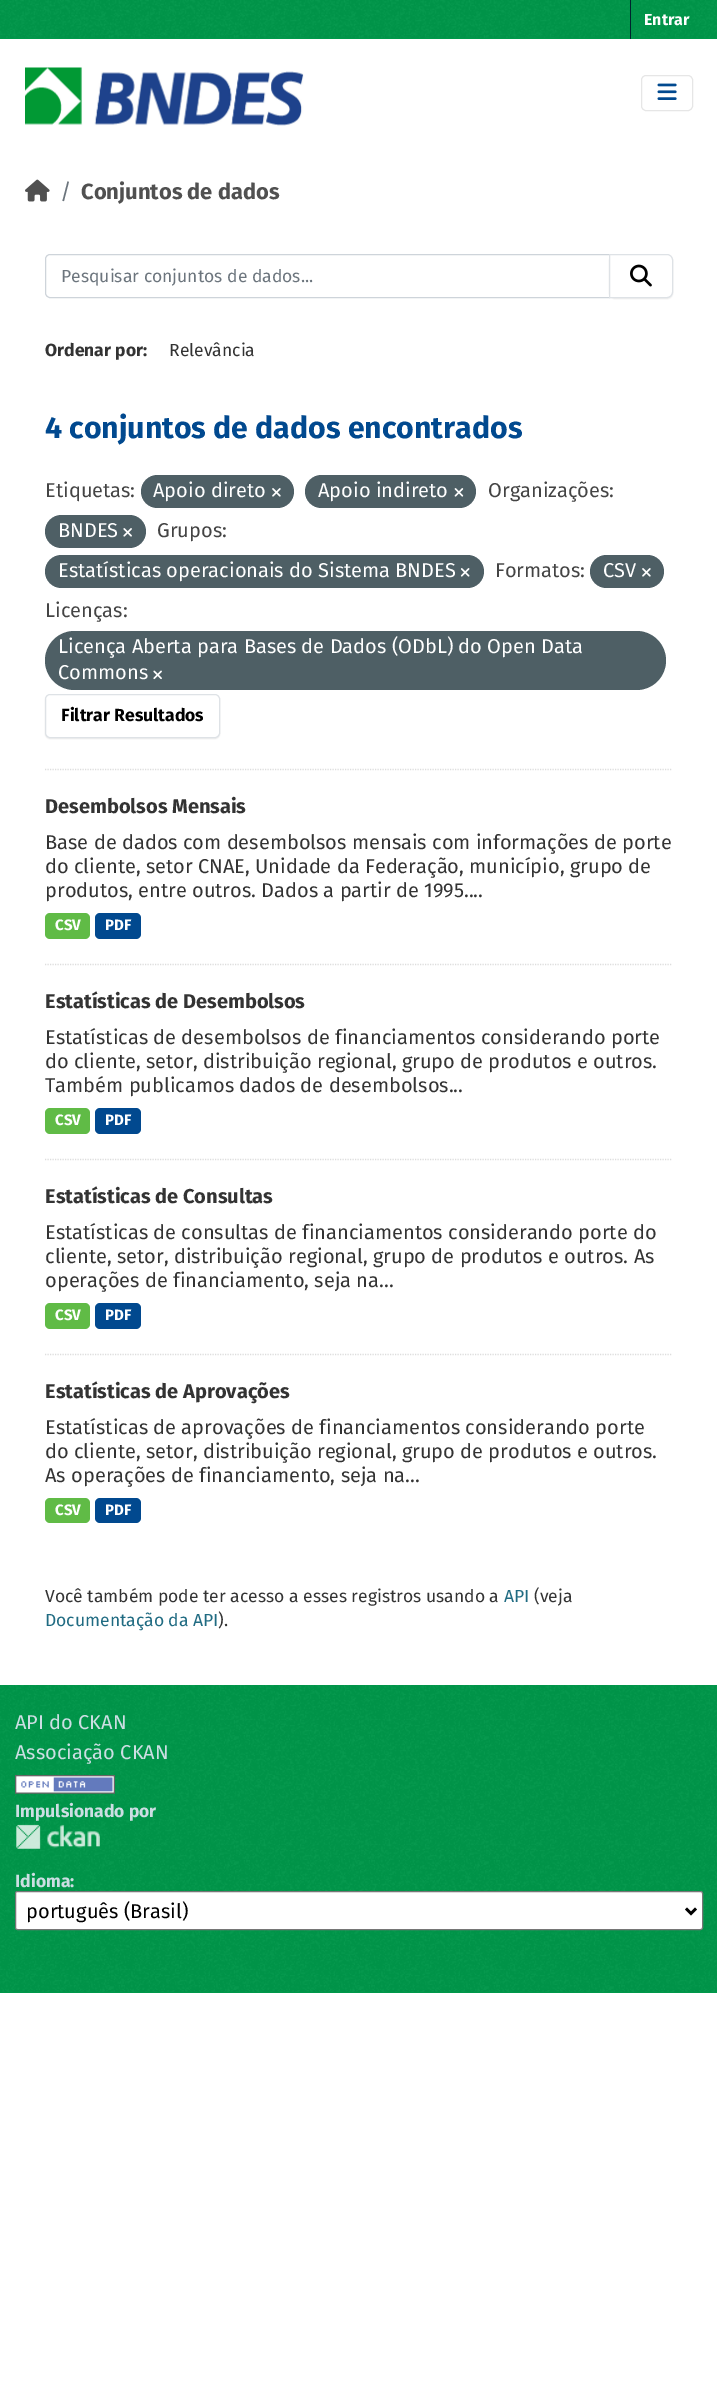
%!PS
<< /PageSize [717 2401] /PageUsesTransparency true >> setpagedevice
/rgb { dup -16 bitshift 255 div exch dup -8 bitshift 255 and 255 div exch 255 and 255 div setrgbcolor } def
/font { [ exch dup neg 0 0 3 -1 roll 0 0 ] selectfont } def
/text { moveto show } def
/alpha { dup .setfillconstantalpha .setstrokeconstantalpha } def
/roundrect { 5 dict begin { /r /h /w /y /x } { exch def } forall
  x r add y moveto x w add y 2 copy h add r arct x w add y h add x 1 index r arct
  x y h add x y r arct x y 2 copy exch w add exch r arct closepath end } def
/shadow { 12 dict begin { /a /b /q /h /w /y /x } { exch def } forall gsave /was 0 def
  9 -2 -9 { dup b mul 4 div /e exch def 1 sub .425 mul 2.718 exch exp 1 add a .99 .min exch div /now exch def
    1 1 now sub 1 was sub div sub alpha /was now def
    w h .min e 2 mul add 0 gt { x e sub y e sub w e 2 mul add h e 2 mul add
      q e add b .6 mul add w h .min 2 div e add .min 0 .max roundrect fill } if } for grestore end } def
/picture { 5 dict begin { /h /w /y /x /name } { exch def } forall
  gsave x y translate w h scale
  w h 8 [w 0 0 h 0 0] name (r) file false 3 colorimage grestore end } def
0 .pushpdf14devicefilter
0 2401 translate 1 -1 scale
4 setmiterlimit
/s1 { /FiraSans-Bold 16 font 16#FFFFFF rgb } def
/s2 { /FiraSans-Regular 21.9 font 16#6C757D rgb } def
/s3 { /FiraSans-Bold 21.9 font 16#505050 rgb } def
/s4 { /FiraSans-Regular 17.5 font 16#6C757D rgb } def
/s5 { /FiraSans-Bold 17.5 font 16#333333 rgb } def
/s6 { /FiraSans-Regular 17.5 font 16#333333 rgb } def
/s7 { /FiraSans-Bold 30.25 font 16#01498F rgb } def
/s8 { /FiraSans-Regular 20 font 16#444444 rgb } def
/s9 { /FiraSans-Regular 20 font 16#FFFFFF rgb } def
/s10 { /FiraSans-Bold 17.5 font 16#000000 rgb } def
/s11 { /FiraSans-Bold 20 font 16#333333 rgb } def
/s12 { /FiraSans-Regular 20 font 16#333333 rgb } def
/s13 { /FiraSans-Bold 15 font 16#FFFFFF rgb } def
/s14 { /FiraSans-Regular 17.5 font 16#206B82 rgb } def
/s15 { /FiraSans-Regular 20 font 16#CCDEE3 rgb } def
/s16 { /FiraSans-Bold 17.5 font 16#CCDEE3 rgb } def
/s17 { /FiraSans-Regular 20 font 16#000000 rgb } def
16#FFFFFF rgb
0 0 717 2401 rectfill
16#00984A rgb
0 0 717 39 rectfill
(pic1.raw) 0 0 717 38 picture
16#00232E rgb
630 0 1 39 rectfill
s1
(Entrar) 644 25 text
(pic2.raw) 25 67 279 59 picture
16#E6E6E6 rgb
641.5 75.5 51 35 4.5 roundrect stroke
(pic3.raw) 657 83 20 17 picture
(pic4.raw) 25 179 25 23 picture
s2
(/) 60 199 text
s3
(Conjuntos de dados) 81 199 text
16#DDDDDD rgb
1.2 setlinewidth
[1.25 1.25] 0 setdash
45 769.5 moveto 672.5 769.5 lineto stroke
16#CED4DA rgb
1 setlinewidth
[] 0 setdash
50 254.5 moveto 609.5 254.5 lineto 609.5 297.5 lineto 50 297.5 lineto 47.5 297.5 45.5 295.5 45.5 293 curveto 45.5 259 lineto 45.5 256.5 47.5 254.5 50 254.5 curveto closepath stroke
s4
(Pesquisar conjuntos de dados...) 61 282 text
16#000000 rgb
609 255 64 44 6 0.5 0.07 shadow
16#FFFFFF rgb
609.5 254.5 moveto 667 254.5 lineto 670 254.5 672.5 257 672.5 260 curveto 672.5 292 lineto 672.5 295 670 297.5 667 297.5 curveto 609.5 297.5 lineto closepath gsave fill grestore
16#DEE2E6 rgb
stroke
(pic5.raw) 630 264 22 23 picture
s5
(Ordenar por:) 45 356 text
s6
(Relevância) 169 356 text
s7
(4 conjuntos de dados encontrados) 45 438 text
s8
(Etiquetas:) 45 497 text
16#4E5F65 rgb
141 475 153 33 16.5 roundrect fill
s9
(Apoio direto) 153 497 text
(pic6.raw) 272 488 9 9 picture
16#4E5F65 rgb
305 475 171 33 16.5 roundrect fill
s9
(Apoio indireto) 318 497 text
(pic7.raw) 454 488 10 9 picture
s8
(Organizações:) 488 497 text
16#4E5F65 rgb
45 515 101 33 16.5 roundrect fill
s9
(BNDES) 58 537 text
(pic8.raw) 123 528 9 9 picture
s8
(Grupos:) 157 537 text
16#4E5F65 rgb
45 555 439 33 16.5 roundrect fill
s9
(Estatísticas operacionais do Sistema BNDES) 58 577 text
(pic9.raw) 460 568 10 9 picture
s8
(Formatos:) 495 577 text
16#4E5F65 rgb
590 555 74 33 16.5 roundrect fill
s9
(CSV) 603 577 text
(pic6.raw) 642 568 9 9 picture
s8
(Licenças:) 45 617 text
16#4E5F65 rgb
45 631 621 59 29.5 roundrect fill
s9
(Licença Aberta para Bases de Dados \(ODbL\) do Open Data) 58 653 text
(Commons) 58 679 text
(pic10.raw) 153 670 9 10 picture
16#000000 rgb
45 695 175 44 5 0.5 0.07 shadow
16#FFFFFF rgb
45.5 694.5 174 43 4.5 roundrect gsave fill grestore
16#DEE2E6 rgb
stroke
s10
(Filtrar Resultados) 61 721 text
16#DDDDDD rgb
1.2 setlinewidth
[1.25 1.25] 0 setdash
45 964.5 moveto 672.5 964.5 lineto stroke
s11
(Desembolsos Mensais) 45 813 text
s12
(Base de dados com desembolsos mensais com informações de porte) 45 849 text
(do cliente, setor CNAE, Unidade da Federação, município, grupo de) 45 873 text
(produtos, entre outros. Dados a partir de 1995....) 45 897 text
16#60BB46 rgb
45 913 45 26 5 roundrect fill
s13
(CSV) 55 930 text
16#01498F rgb
95 913 46 26 5 roundrect fill
s13
(PDF) 105 930 text
16#DDDDDD rgb
45 1159.5 moveto 672.5 1159.5 lineto stroke
s11
(Estatísticas de Desembolsos) 45 1008 text
s12
(Estatísticas de desembolsos de financiamentos considerando porte) 45 1044 text
(do cliente, setor, distribuição regional, grupo de produtos e outros.) 45 1068 text
(Também publicamos dados de desembolsos...) 45 1092 text
16#60BB46 rgb
45 1108 45 26 5 roundrect fill
s13
(CSV) 55 1125 text
16#01498F rgb
95 1108 46 26 5 roundrect fill
s13
(PDF) 105 1125 text
16#DDDDDD rgb
45 1354.5 moveto 672.5 1354.5 lineto stroke
s11
(Estatísticas de Consultas) 45 1203 text
s12
(Estatísticas de consultas de financiamentos considerando porte do) 45 1239 text
(cliente, setor, distribuição regional, grupo de produtos e outros. As) 45 1263 text
(operações de financiamento, seja na...) 45 1287 text
16#60BB46 rgb
45 1303 45 26 5 roundrect fill
s13
(CSV) 55 1320 text
16#01498F rgb
95 1303 46 26 5 roundrect fill
s13
(PDF) 105 1320 text
s11
(Estatísticas de Aprovações) 45 1398 text
s12
(Estatísticas de aprovações de financiamentos considerando porte) 45 1434 text
(do cliente, setor, distribuição regional, grupo de produtos e outros.) 45 1458 text
(As operações de financiamento, seja na...) 45 1482 text
16#60BB46 rgb
45 1498 45 25 5 roundrect fill
s13
(CSV) 55 1515 text
16#01498F rgb
95 1498 46 25 5 roundrect fill
s13
(PDF) 105 1515 text
s6
(Você também pode ter acesso a esses registros usando a) 45 1602 text
s14
(API) 504 1602 text
s6
(\(veja) 534 1602 text
s14
(Documentação da API) 45 1626 text
s6
(\).) 218 1626 text
16#00984A rgb
0 1685 717 308 rectfill
(pic11.raw) 0 1685 717 307 picture
s15
(API do CKAN) 15 1729 text
(Associação CKAN) 15 1759 text
(pic12.raw) 15 1775 100 19 picture
s16
(Impulsionado por) 15 1817 text
(pic13.raw) 16 1824 84 25 picture
(Idioma:) 15 1887 text
16#FFFFFF rgb
15.5 1891.5 687 38 2 roundrect gsave fill grestore
16#767676 rgb
1 setlinewidth
[] 0 setdash
stroke
16#000000 rgb
2.5 setlinewidth
686 1908.5 moveto 691 1913.5 lineto 696 1908.5 lineto stroke
s17
(português \(Brasil\)) 26 1918 text
.poppdf14devicefilter showpage
